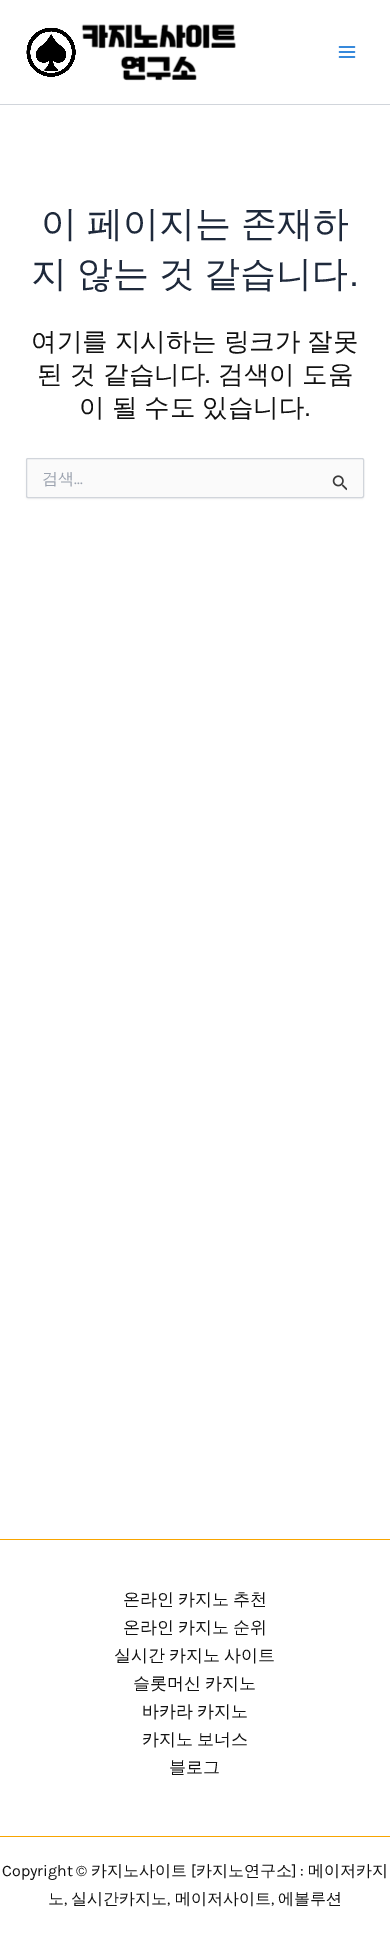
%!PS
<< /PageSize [390 1943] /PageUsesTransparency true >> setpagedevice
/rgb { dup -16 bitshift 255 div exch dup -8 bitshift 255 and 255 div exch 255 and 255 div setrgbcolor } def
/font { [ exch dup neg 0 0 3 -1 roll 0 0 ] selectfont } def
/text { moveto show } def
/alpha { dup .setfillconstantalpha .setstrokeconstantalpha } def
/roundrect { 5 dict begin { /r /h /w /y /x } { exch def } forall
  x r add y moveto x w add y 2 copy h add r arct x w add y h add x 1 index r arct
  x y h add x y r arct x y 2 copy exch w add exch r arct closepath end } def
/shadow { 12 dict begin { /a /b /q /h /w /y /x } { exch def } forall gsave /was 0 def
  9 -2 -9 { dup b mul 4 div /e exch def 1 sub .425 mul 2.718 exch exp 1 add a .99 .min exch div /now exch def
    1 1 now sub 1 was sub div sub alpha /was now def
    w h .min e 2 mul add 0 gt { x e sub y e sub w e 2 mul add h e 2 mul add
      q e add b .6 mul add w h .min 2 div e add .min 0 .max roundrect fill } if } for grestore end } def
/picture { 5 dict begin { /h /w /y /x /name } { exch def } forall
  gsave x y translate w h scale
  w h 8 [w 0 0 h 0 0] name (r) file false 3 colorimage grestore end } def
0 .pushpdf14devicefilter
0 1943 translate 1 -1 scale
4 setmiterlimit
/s1 { /LiberationSans-Regular 36 font 16#1E293B rgb } def
/s2 { /WenQuanYiZenHei-Medium 25.5 font 16#111111 rgb } def
/s3 { /LiberationSans-Regular 25.5 font 16#111111 rgb } def
/s4 { /WenQuanYiZenHei-Medium 16 font 16#9CA3AF rgb } def
/s5 { /Karla-Regular 16 font 16#9CA3AF rgb } def
/s6 { /WenQuanYiZenHei-Medium 17 font 16#111111 rgb } def
/s7 { /Karla-Regular 16 font 16#111111 rgb } def
/s8 { /WenQuanYiZenHei-Medium 16 font 16#111111 rgb } def
16#FFFFFF rgb
0 0 390 1943 rectfill
16#D1D5DB rgb
0 104 390 1 rectfill
(pic1.raw) 26 24 210 57 picture
(pic2.raw) 338 46 18 12 picture
/WenQuanYiZenHei-Medium 36 font
16#1E293B rgb
41 236 moveto -1 0 32 (이 페이지는 존재하) widthshow
31 286 moveto -1 0 32 (지 않는 것 같습니다) widthshow
s1
(.) 349 286 text
/WenQuanYiZenHei-Medium 25.5 font
16#111111 rgb
31 350 moveto -0.5 0 32 (여기를 지시하는 링크가 잘못) widthshow
(된 것 같습니다) 37 383 text
s3
(.) 204 383 text
s2
(검색이 도움) 218 383 text
79 416 moveto -0.5 0 32 (이 될 수도 있습니다) widthshow
s3
(.) 304 416 text
16#000000 rgb
26 459 338 40 2 1 0.05 shadow
16#FAFAFA rgb
26.5 458.5 337 39 1.5 roundrect gsave fill grestore
16#D1D5DB rgb
stroke
s4
(검색) 42 484 text
s5
(...) 74 484 text
(pic3.raw) 332 475 15 16 picture
16#F8A500 rgb
0 1539 390 1 rectfill
/WenQuanYiZenHei-Medium 17 font
16#111111 rgb
123 1605 moveto -1 0 32 (온라인 카지노 추천) widthshow
123 1633 moveto -1 0 32 (온라인 카지노 순위) widthshow
114 1661 moveto -1 0 32 (실시간 카지노 사이트) widthshow
133 1689 moveto -1 0 32 (슬롯머신 카지노) widthshow
142 1717 moveto -1 0 32 (바카라 카지노) widthshow
142 1745 moveto -1 0 32 (카지노 보너스) widthshow
(블로그) 169 1773 text
16#F8A500 rgb
0 1836 390 1 rectfill
s7
(Copyright ©) 2 1876 text
s8
(카지노사이트) 91 1876 text
s7
([) 191 1876 text
s8
(카지노연구소) 196 1876 text
s7
(] :) 292 1876 text
s8
(메이저카지) 308 1876 text
(노) 48 1904 text
s7
(,) 64 1904 text
s8
(실시간카지노) 71 1904 text
s7
(,) 167 1904 text
s8
(메이저사이트) 175 1904 text
s7
(,) 271 1904 text
s8
(에볼루션) 278 1904 text
.poppdf14devicefilter showpage
